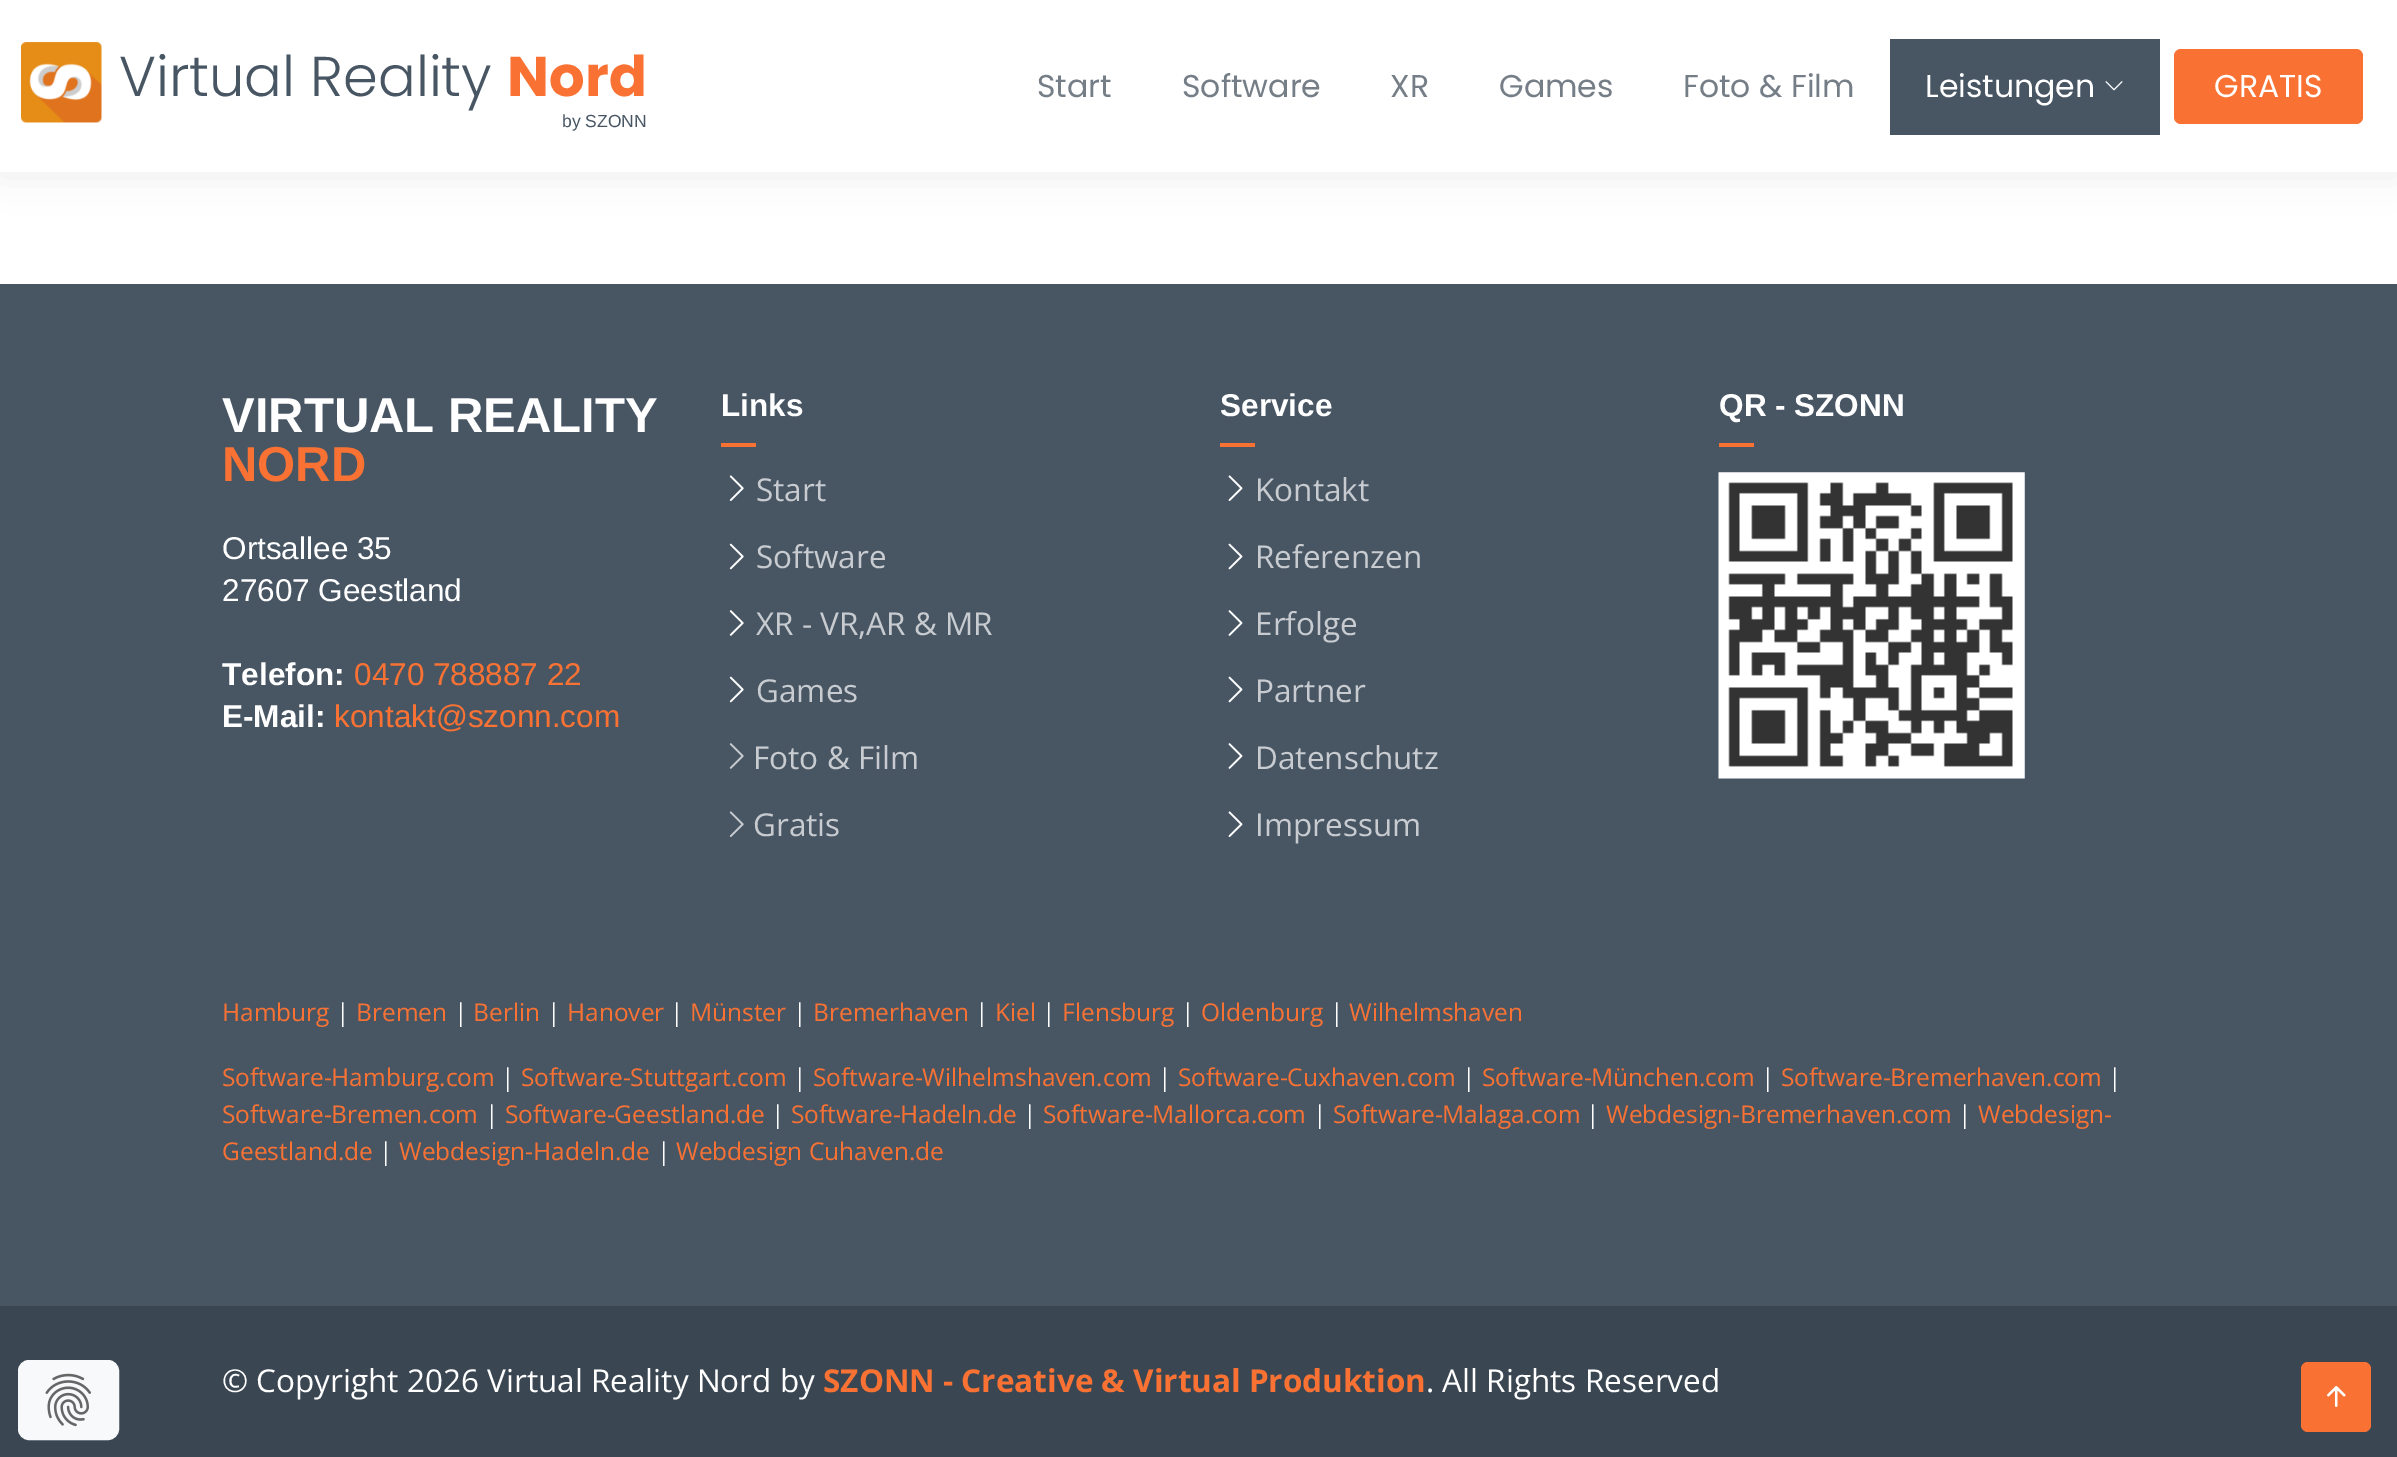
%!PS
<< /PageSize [2397 1457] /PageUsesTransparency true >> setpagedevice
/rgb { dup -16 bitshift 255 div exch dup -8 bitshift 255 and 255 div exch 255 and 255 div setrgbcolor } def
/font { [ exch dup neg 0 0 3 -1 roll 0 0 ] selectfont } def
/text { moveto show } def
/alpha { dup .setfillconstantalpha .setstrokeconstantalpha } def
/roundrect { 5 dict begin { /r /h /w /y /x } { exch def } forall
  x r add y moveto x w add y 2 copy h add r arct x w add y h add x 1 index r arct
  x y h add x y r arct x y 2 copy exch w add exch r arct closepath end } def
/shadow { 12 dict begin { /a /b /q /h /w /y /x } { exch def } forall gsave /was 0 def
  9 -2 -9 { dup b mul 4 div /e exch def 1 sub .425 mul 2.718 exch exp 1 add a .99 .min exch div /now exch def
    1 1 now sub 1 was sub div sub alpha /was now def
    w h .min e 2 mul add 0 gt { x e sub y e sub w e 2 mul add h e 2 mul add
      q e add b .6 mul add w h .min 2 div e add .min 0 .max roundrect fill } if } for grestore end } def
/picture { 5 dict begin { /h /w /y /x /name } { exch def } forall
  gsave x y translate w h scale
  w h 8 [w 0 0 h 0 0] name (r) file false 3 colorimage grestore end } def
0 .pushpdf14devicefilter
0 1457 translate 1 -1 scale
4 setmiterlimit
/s1 { /Poppins-Light 56 font 16#485664 rgb } def
/s2 { /Poppins-Bold 56 font 16#F97233 rgb } def
/s3 { /LiberationSans-Regular 17.5 font 16#485664 rgb } def
/s4 { /Poppins-Regular 31.5 font 16#757E87 rgb } def
/s5 { /Poppins-Regular 31.5 font 16#FFFFFF rgb } def
/s6 { /LiberationSans-Bold 49 font 16#FFFFFF rgb } def
/s7 { /LiberationSans-Bold 49 font 16#F97233 rgb } def
/s8 { /LiberationSans-Regular 31.5 font 16#FFFFFF rgb } def
/s9 { /LiberationSans-Bold 31.5 font 16#FFFFFF rgb } def
/s10 { /LiberationSans-Regular 31.5 font 16#F97233 rgb } def
/s11 { /OpenSans-Regular 31.5 font 16#C8CCD1 rgb } def
/s12 { /OpenSans-Regular 24.5 font 16#F97233 rgb } def
/s13 { /OpenSans-Regular 24.5 font 16#FFFFFF rgb } def
/s14 { /OpenSans-Regular 31.5 font 16#FFFFFF rgb } def
/s15 { /OpenSans-Bold 31.5 font 16#F97233 rgb } def
16#FFFFFF rgb
0 0 2397 1457 rectfill
16#485664 rgb
0 4 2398 171 0 17.5 0.1 shadow
16#FFFFFF rgb
0 0 2397 172 rectfill
(pic1.raw) 21 42 81 81 picture
s1
(Virtual Reality) 119 96 text
s2
(Nord) 507 96 text
s3
(by SZONN) 562 127 text
s4
(Start) 1037 97 text
(Software) 1182 97 text
(XR) 1390 97 text
(Games) 1499 97 text
(Foto & Film) 1683 97 text
16#485664 rgb
1890 39 270 96 rectfill
s5
(Leistungen) 1925 97 text
(pic2.raw) 2105 81 18 10 picture
16#F97233 rgb
2174 49 189 75 7 roundrect fill
s5
(GRATIS) 2214 97 text
16#3A4753 rgb
0 1306 2397 151 rectfill
16#F8F9FA rgb
19 1361 99 78 10 roundrect gsave fill grestore
2 setlinewidth
stroke
(pic3.raw) 45 1373 46 54 picture
16#485664 rgb
0 284 2397 1022 rectfill
s6
(VIRTUAL REALITY) 222 432 text
s7
(NORD) 222 481 text
s8
(Ortsallee 35) 222 559 text
(27607 Geestland) 222 601 text
s9
(Telefon:) 222 685 text
s10
(0470 788887 22) 354 685 text
s9
(E-Mail:) 222 727 text
s10
(kontakt@szonn.com) 334 727 text
s9
(Links) 721 416 text
16#F97233 rgb
721 443 35 4 rectfill
(pic4.raw) 729 475 15 26 picture
s11
(Start) 756 501 text
(pic5.raw) 729 543 15 27 picture
(Software) 756 568 text
(pic6.raw) 729 610 15 26 picture
(XR - VR,AR & MR) 756 635 text
(pic5.raw) 729 676 15 27 picture
(Games) 756 702 text
(pic7.raw) 729 743 15 26 picture
(Foto & Film) 753 769 text
(pic8.raw) 729 811 15 26 picture
(Gratis) 753 836 text
s9
(Service) 1220 416 text
16#F97233 rgb
1220 443 35 4 rectfill
(pic9.raw) 1228 475 15 26 picture
s11
(Kontakt) 1255 501 text
(pic10.raw) 1228 543 15 27 picture
(Referenzen) 1255 568 text
(pic11.raw) 1228 610 15 26 picture
(Erfolge) 1255 635 text
(pic10.raw) 1228 676 15 27 picture
(Partner) 1255 702 text
(pic11.raw) 1228 743 15 26 picture
(Datenschutz) 1255 769 text
(pic9.raw) 1228 811 15 26 picture
(Impressum) 1255 836 text
s9
(QR - SZONN) 1719 416 text
16#F97233 rgb
1719 443 35 4 rectfill
(pic12.raw) 1718 472 307 307 picture
s12
(Hamburg) 222 1021 text
s13
(|) 336 1021 text
s12
(Bremen) 356 1021 text
s13
(|) 454 1021 text
s12
(Berlin) 473 1021 text
s13
(|) 547 1021 text
s12
(Hanover) 567 1021 text
s13
(|) 670 1021 text
s12
(Münster) 690 1021 text
s13
(|) 793 1021 text
s12
(Bremerhaven) 813 1021 text
s13
(|) 975 1021 text
s12
(Kiel) 995 1021 text
s13
(|) 1042 1021 text
s12
(Flensburg) 1062 1021 text
s13
(|) 1181 1021 text
s12
(Oldenburg) 1201 1021 text
s13
(|) 1330 1021 text
s12
(Wilhelmshaven) 1349 1021 text
(Software-Hamburg.com) 222 1086 text
s13
(|) 501 1086 text
s12
(Software-Stuttgart.com) 521 1086 text
s13
(|) 793 1086 text
s12
(Software-Wilhelmshaven.com) 813 1086 text
s13
(|) 1158 1086 text
s12
(Software-Cuxhaven.com) 1178 1086 text
s13
(|) 1462 1086 text
s12
(Software-München.com) 1482 1086 text
s13
(|) 1761 1086 text
s12
(Software-Bremerhaven.com) 1781 1086 text
s13
(|) 2108 1086 text
s12
(Software-Bremen.com) 222 1123 text
s13
(|) 485 1123 text
s12
(Software-Geestland.de) 505 1123 text
s13
(|) 771 1123 text
s12
(Software-Hadeln.de) 791 1123 text
s13
(|) 1023 1123 text
s12
(Software-Mallorca.com) 1043 1123 text
s13
(|) 1313 1123 text
s12
(Software-Malaga.com) 1333 1123 text
s13
(|) 1586 1123 text
s12
(Webdesign-Bremerhaven.com) 1606 1123 text
s13
(|) 1958 1123 text
s12
(Webdesign-) 1978 1123 text
(Geestland.de) 222 1160 text
s13
(|) 379 1160 text
s12
(Webdesign-Hadeln.de) 399 1160 text
s13
(|) 657 1160 text
s12
(Webdesign Cuhaven.de) 676 1160 text
s14
(© Copyright 2026 Virtual Reality Nord by) 222 1392 text
s15
(SZONN - Creative & Virtual Produktion) 823 1392 text
s14
(. All Rights Reserved) 1426 1392 text
16#F97233 rgb
2301 1362 70 70 7 roundrect fill
(pic13.raw) 2327 1386 19 21 picture
.poppdf14devicefilter showpage
